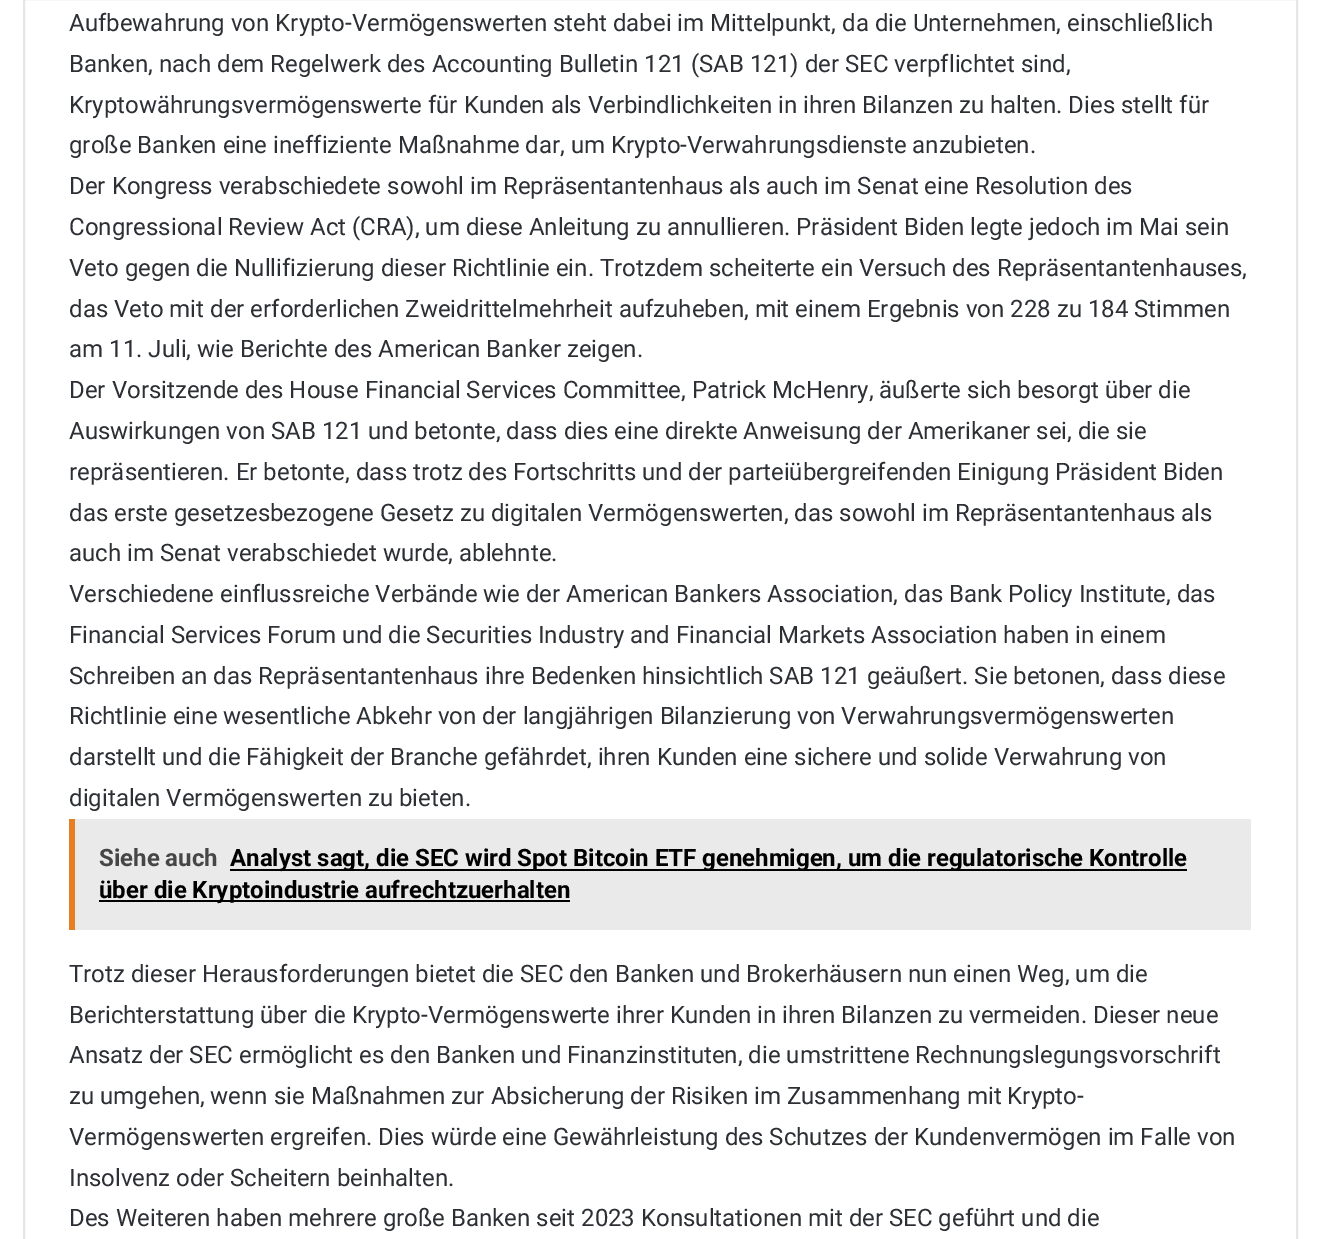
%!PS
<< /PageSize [1319 1239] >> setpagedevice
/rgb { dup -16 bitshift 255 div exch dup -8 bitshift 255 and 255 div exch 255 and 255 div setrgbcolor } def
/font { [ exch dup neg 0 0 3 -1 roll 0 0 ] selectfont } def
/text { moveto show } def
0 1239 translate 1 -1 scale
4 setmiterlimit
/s1 { /Roboto-Regular 24 font 16#2C2F34 rgb } def
/s2 { /Roboto-Bold 24 font 16#464646 rgb } def
/s3 { /Roboto-Bold 24 font 16#000000 rgb } def
16#FFFFFF rgb
0 0 1319 1239 rectfill
16#E6E6E6 rgb
2 setlinewidth
24 -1 1273 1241 rectstroke
s1
(Aufbewahrung von Krypto-Vermögenswerten steht dabei im Mittelpunkt, da die Unternehmen, einschließlich) 69 31 text
(Banken, nach dem Regelwerk des Accounting Bulletin 121 \(SAB 121\) der SEC verpflichtet sind,) 69 72 text
(Kryptowährungsvermögenswerte für Kunden als Verbindlichkeiten in ihren Bilanzen zu halten. Dies stellt für) 69 113 text
(große Banken eine ineffiziente Maßnahme dar, um Krypto-Verwahrungsdienste anzubieten.) 69 153 text
(Der Kongress verabschiedete sowohl im Repräsentantenhaus als auch im Senat eine Resolution des) 69 194 text
(Congressional Review Act \(CRA\), um diese Anleitung zu annullieren. Präsident Biden legte jedoch im Mai sein) 69 235 text
(Veto gegen die Nullifizierung dieser Richtlinie ein. Trotzdem scheiterte ein Versuch des Repräsentantenhauses,) 69 276 text
(das Veto mit der erforderlichen Zweidrittelmehrheit aufzuheben, mit einem Ergebnis von 228 zu 184 Stimmen) 69 317 text
(am 11. Juli, wie Berichte des American Banker zeigen.) 69 357 text
(Der Vorsitzende des House Financial Services Committee, Patrick McHenry, äußerte sich besorgt über die) 69 398 text
(Auswirkungen von SAB 121 und betonte, dass dies eine direkte Anweisung der Amerikaner sei, die sie) 69 439 text
(repräsentieren. Er betonte, dass trotz des Fortschritts und der parteiübergreifenden Einigung Präsident Biden) 69 480 text
(das erste gesetzesbezogene Gesetz zu digitalen Vermögenswerten, das sowohl im Repräsentantenhaus als) 69 521 text
(auch im Senat verabschiedet wurde, ablehnte.) 69 561 text
(Verschiedene einflussreiche Verbände wie der American Bankers Association, das Bank Policy Institute, das) 69 602 text
(Financial Services Forum und die Securities Industry and Financial Markets Association haben in einem) 69 643 text
(Schreiben an das Repräsentantenhaus ihre Bedenken hinsichtlich SAB 121 geäußert. Sie betonen, dass diese) 69 684 text
(Richtlinie eine wesentliche Abkehr von der langjährigen Bilanzierung von Verwahrungsvermögenswerten) 69 724 text
(darstellt und die Fähigkeit der Branche gefährdet, ihren Kunden eine sichere und solide Verwahrung von) 69 765 text
(digitalen Vermögenswerten zu bieten.) 69 806 text
16#EAEAEA rgb
75 819 1176 111 rectfill
16#E67E22 rgb
69 819 6 111 rectfill
s2
(Siehe auch) 99 866 text
16#000000 rgb
230 869 957 2 rectfill
(Analyst sagt, die SEC wird Spot Bitcoin ETF genehmigen, um die regulatorische Kontrolle) 230 866 text
99 900 471 2 rectfill
(über die Kryptoindustrie aufrechtzuerhalten) 99 898 text
s1
(Trotz dieser Herausforderungen bietet die SEC den Banken und Brokerhäusern nun einen Weg, um die) 69 982 text
(Berichterstattung über die Krypto-Vermögenswerte ihrer Kunden in ihren Bilanzen zu vermeiden. Dieser neue) 69 1023 text
(Ansatz der SEC ermöglicht es den Banken und Finanzinstituten, die umstrittene Rechnungslegungsvorschrift) 69 1063 text
(zu umgehen, wenn sie Maßnahmen zur Absicherung der Risiken im Zusammenhang mit Krypto-) 69 1104 text
(Vermögenswerten ergreifen. Dies würde eine Gewährleistung des Schutzes der Kundenvermögen im Falle von) 69 1145 text
(Insolvenz oder Scheitern beinhalten.) 69 1186 text
(Des Weiteren haben mehrere große Banken seit 2023 Konsultationen mit der SEC geführt und die) 69 1226 text
showpage
